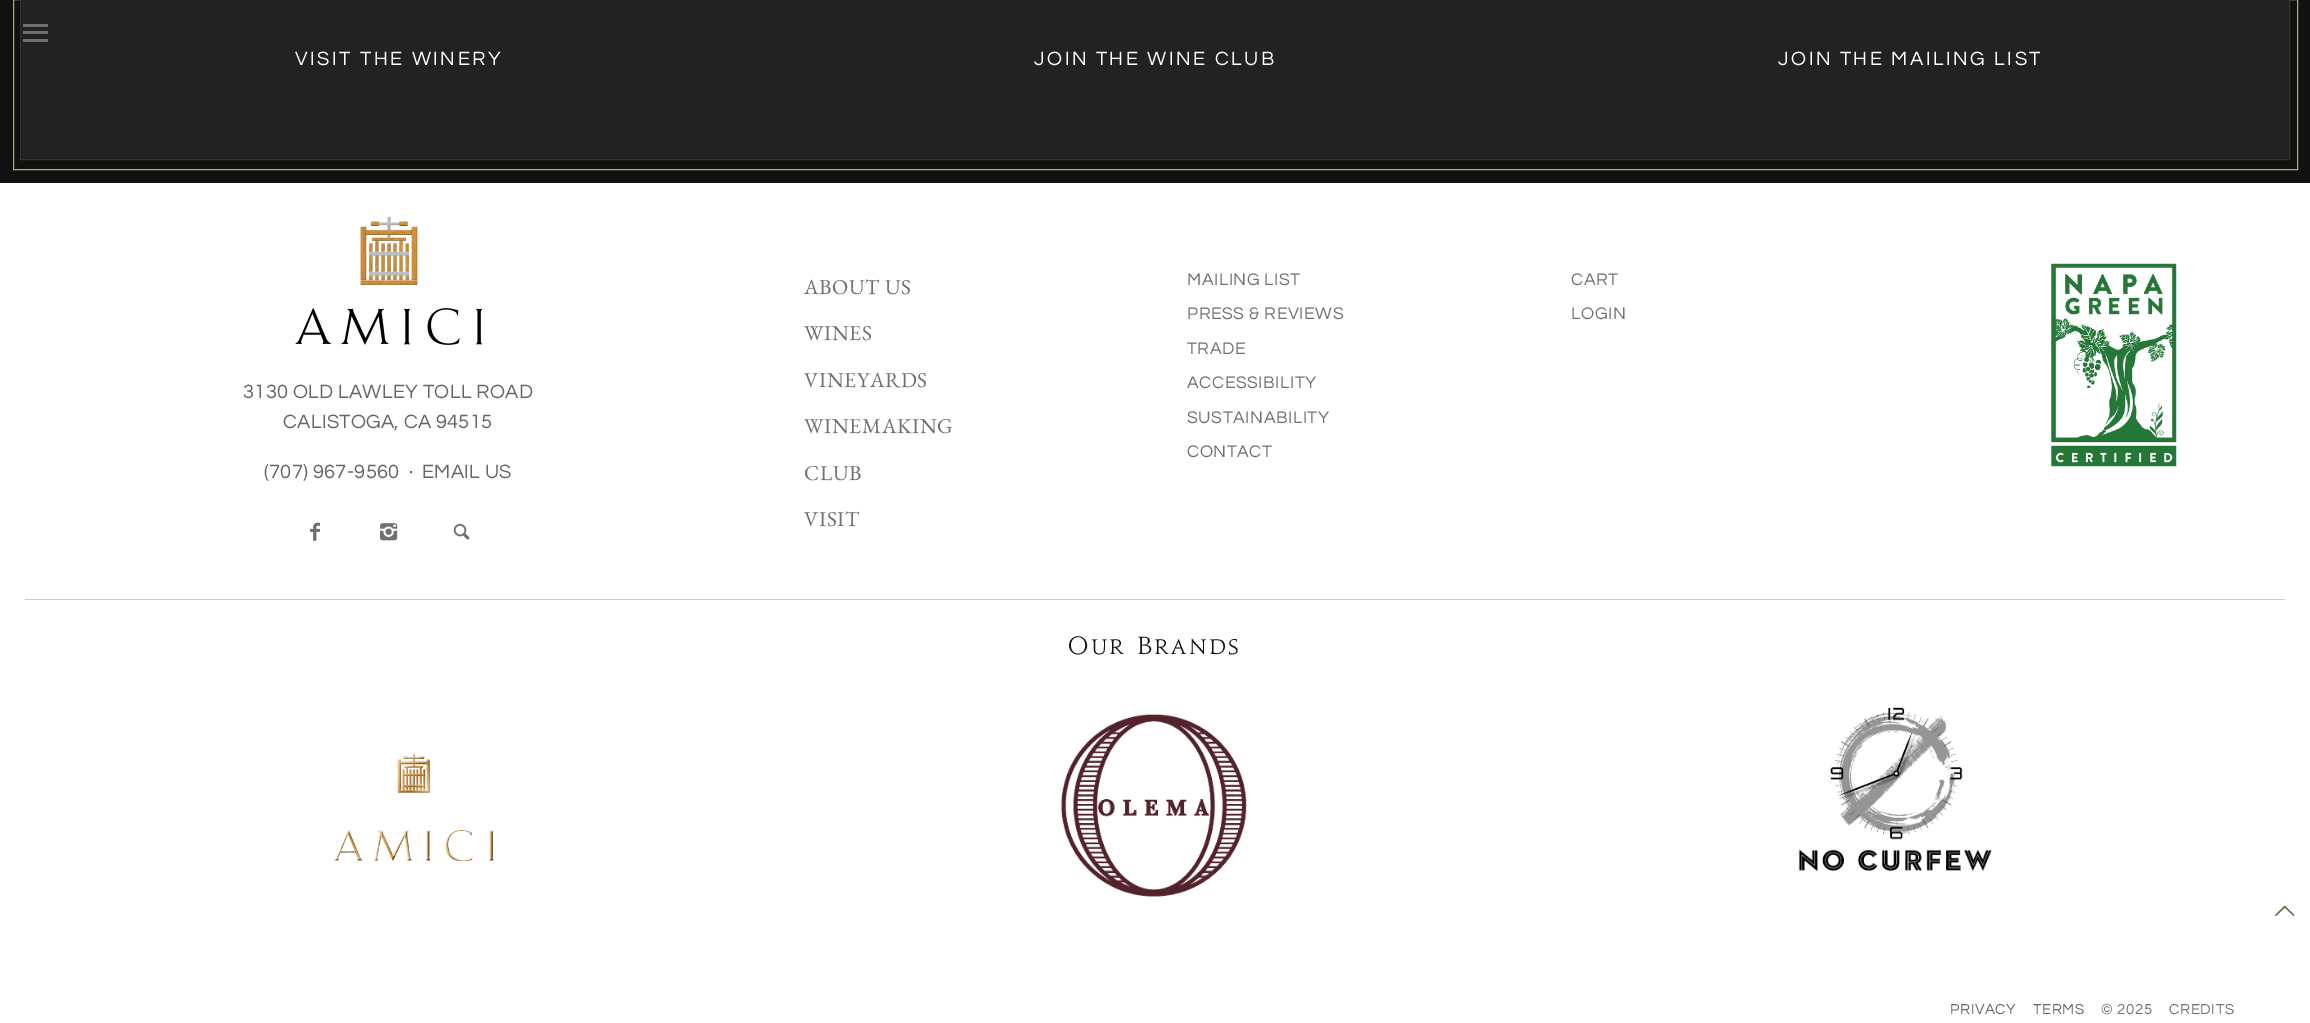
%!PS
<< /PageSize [2310 1023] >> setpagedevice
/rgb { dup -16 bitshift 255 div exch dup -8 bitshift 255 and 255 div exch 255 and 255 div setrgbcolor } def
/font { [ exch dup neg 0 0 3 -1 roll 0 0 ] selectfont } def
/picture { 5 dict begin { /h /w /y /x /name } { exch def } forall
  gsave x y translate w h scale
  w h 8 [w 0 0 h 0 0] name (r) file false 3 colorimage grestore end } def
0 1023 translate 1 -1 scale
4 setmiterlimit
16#FFFFFF rgb
0 0 2310 1023 rectfill
16#111111 rgb
0 0 2310 183 rectfill
16#C0A369 rgb
13.5 -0.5 2284 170 rectstroke
16#333333 rgb
20.5 -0.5 2269 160 rectstroke
16#222222 rgb
21 0 2268 159 rectfill
16#707070 rgb
23 31 25 3 rectfill
23 24 25 3 rectfill
23 39 25 3 rectfill
/Questrial-Regular 20 font
16#FFFFFF rgb
295 65 moveto 2.5 0 (VISIT THE WINERY) ashow
1034 65 moveto 2.5 0 (JOIN THE WINE CLUB) ashow
1778 65 moveto 2.5 0 (JOIN THE MAILING LIST) ashow
(pic1.raw) 360 216 58 69 picture
(pic2.raw) 295 308 187 37 picture
16#666666 rgb
243 398 moveto 0.3 0 (3130 OLD LAWLEY TOLL ROAD) ashow
283 428 moveto 0.3 0 (CALISTOGA, CA 94515) ashow
264 478 moveto 0.3 0 (\(707\) 967-9560) ashow
409 478 moveto 0.3 0 (·) ashow
422 478 moveto 0.3 0 (EMAIL US) ashow
(pic3.raw) 310 522 10 19 picture
(pic4.raw) 380 523 18 18 picture
(pic5.raw) 453 523 17 17 picture
/EBGaramond-Regular 21.25 font
16#707070 rgb
804 294 moveto 0.6 0 (ABOUT US) ashow
804 340 moveto 0.6 0 (WINES) ashow
804 387 moveto 0.6 0 (VINEYARDS) ashow
804 433 moveto 0.6 0 (WINEMAKING) ashow
804 480 moveto 0.6 0 (CLUB) ashow
804 526 moveto 0.6 0 (VISIT) ashow
/Questrial-Regular 17.5 font
1187 285 moveto 0.6 0 (MAILING LIST) ashow
1187 319 moveto 0.6 0 (PRESS & REVIEWS) ashow
1187 354 moveto 0.6 0 (TRADE) ashow
1187 388 moveto 0.6 0 (ACCESSIBILITY) ashow
1187 423 moveto 0.6 0 (SUSTAINABILITY) ashow
1187 457 moveto 0.6 0 (CONTACT) ashow
1571 285 moveto 0.6 0 (CART) ashow
1571 319 moveto 0.6 0 (LOGIN) ashow
(pic6.raw) 2051 263 126 204 picture
16#CCCCCC rgb
25 599 2260 1 rectfill
/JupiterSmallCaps-Regular 22.5 font
16#111111 rgb
1068 654 moveto 2.5 0 (Our Brands) ashow
(pic7.raw) 333 753 161 108 picture
(pic8.raw) 1061 714 186 183 picture
(pic9.raw) 1798 707 194 165 picture
/Questrial-Regular 15 font
16#666666 rgb
1950 1014 moveto 0.6 0 (PRIVACY) ashow
2033 1014 moveto 0.6 0 (TERMS) ashow
16#707070 rgb
2101 1014 moveto 0.6 0 (© 2025) ashow
2169 1014 moveto 0.6 0 (CREDITS) ashow
(pic10.raw) 2275 905 20 11 picture
showpage
